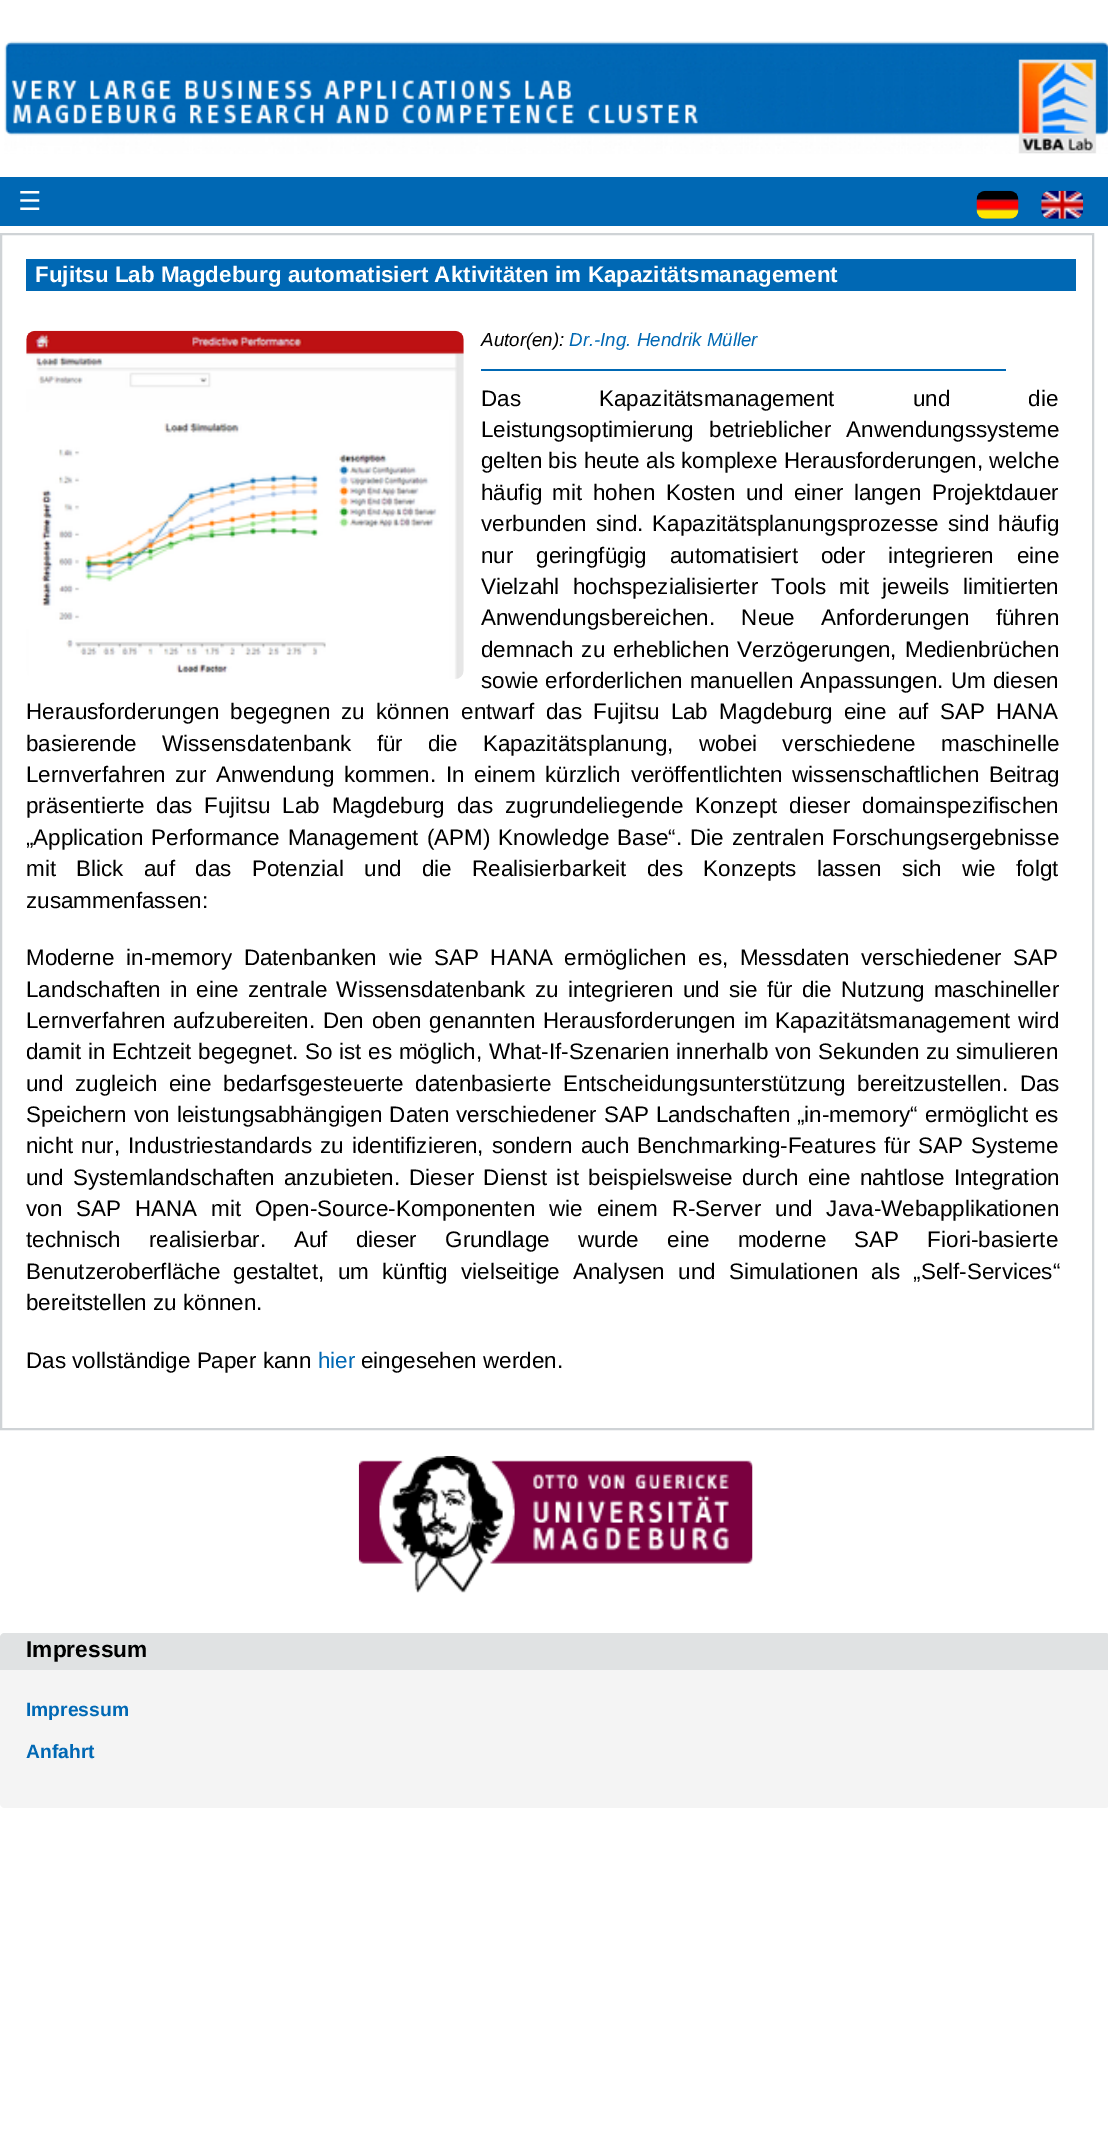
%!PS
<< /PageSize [1108 2149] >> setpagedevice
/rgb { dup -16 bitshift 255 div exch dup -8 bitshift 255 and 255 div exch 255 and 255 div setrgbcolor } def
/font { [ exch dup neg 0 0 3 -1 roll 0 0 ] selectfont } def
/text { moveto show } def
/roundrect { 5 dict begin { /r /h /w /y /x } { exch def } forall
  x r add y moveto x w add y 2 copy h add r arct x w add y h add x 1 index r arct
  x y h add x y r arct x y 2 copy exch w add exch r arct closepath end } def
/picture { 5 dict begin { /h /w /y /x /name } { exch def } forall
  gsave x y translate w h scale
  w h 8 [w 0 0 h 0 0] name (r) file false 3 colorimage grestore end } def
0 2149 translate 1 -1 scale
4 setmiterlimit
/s1 { /DejaVuSans-Regular 26 font 16#FFFFFF rgb } def
/s2 { /LiberationSans-Bold 22.4 font 16#FFFFFF rgb } def
/s3 { /LiberationSans-Italic 18.75 font 16#000000 rgb } def
/s4 { /LiberationSans-Italic 18.75 font 16#0068B4 rgb } def
/s5 { /LiberationSans-Regular 22.4 font 16#000000 rgb } def
/s6 { /LiberationSans-Regular 22.4 font 16#0068B4 rgb } def
/s7 { /LiberationSans-Bold 22.75 font 16#000000 rgb } def
/s8 { /LiberationSans-Bold 19.25 font 16#0068B4 rgb } def
16#FFFFFF rgb
0 0 1108 2149 rectfill
(pic1.raw) 4 41 1104 113 picture
16#0068B4 rgb
0 177 1108 49 rectfill
s1
(☰) 18 210 text
(pic2.raw) 976 190 43 29 picture
(pic3.raw) 1041 190 43 29 picture
16#CFD3D6 rgb
2 setlinewidth
1 234 1092 1195 rectstroke
16#0068B4 rgb
26 259 1050 32 rectfill
s2
(Fujitsu Lab Magdeburg automatisiert Aktivitäten im Kapazitätsmanagement) 35 282 text
(pic4.raw) 26 330 438 349 picture
s3
(Autor\(en\):) 481 346 text
s4
(Dr.-Ing. Hendrik Müller) 569 346 text
481 369 525 2 rectfill
/LiberationSans-Regular 22.4 font
16#000000 rgb
481 406 moveto 72 0 32 (Das Kapazitätsmanagement und die) widthshow
481 437 moveto 9 0 32 (Leistungsoptimierung betrieblicher Anwendungssysteme) widthshow
481 468 moveto 0.25 0 32 (gelten bis heute als komplexe Herausforderungen, welche) widthshow
481 500 moveto 4.25 0 32 (häufig mit hohen Kosten und einer langen Projektdauer) widthshow
481 531 moveto 2.9 0 32 (verbunden sind. Kapazitätsplanungsprozesse sind häufig) widthshow
481 563 moveto 16.5 0 32 (nur geringfügig automatisiert oder integrieren eine) widthshow
481 594 moveto 7 0 32 (Vielzahl hochspezialisierter Tools mit jeweils limitierten) widthshow
481 625 moveto 20 0 32 (Anwendungsbereichen. Neue Anforderungen führen) widthshow
481 657 moveto 2 0 32 (demnach zu erheblichen Verzögerungen, Medienbrüchen) widthshow
481 688 moveto 1 0 32 (sowie erforderlichen manuellen Anpassungen. Um diesen) widthshow
26 719 moveto 5.1 0 32 (Herausforderungen begegnen zu können entwarf das Fujitsu Lab Magdeburg eine auf SAP HANA) widthshow
26 751 moveto 19 0 32 (basierende Wissensdatenbank für die Kapazitätsplanung, wobei verschiedene maschinelle) widthshow
26 782 moveto 3.5 0 32 (Lernverfahren zur Anwendung kommen. In einem kürzlich veröffentlichten wissenschaftlichen Beitrag) widthshow
26 813 moveto 5.75 0 32 (präsentierte das Fujitsu Lab Magdeburg das zugrundeliegende Konzept dieser domainspezifischen) widthshow
26 845 moveto 2 0 32 („Application Performance Management \(APM\) Knowledge Base“. Die zentralen Forschungsergebnisse) widthshow
26 876 moveto 14.1 0 32 (mit Blick auf das Potenzial und die Realisierbarkeit des Konzepts lassen sich wie folgt) widthshow
(zusammenfassen:) 26 908 text
26 965 moveto 5.5 0 32 (Moderne in-memory Datenbanken wie SAP HANA ermöglichen es, Messdaten verschiedener SAP) widthshow
26 997 moveto 2.9 0 32 (Landschaften in eine zentrale Wissensdatenbank zu integrieren und sie für die Nutzung maschineller) widthshow
26 1028 moveto 1.5 0 32 (Lernverfahren aufzubereiten. Den oben genannten Herausforderungen im Kapazitätsmanagement wird) widthshow
26 1059 moveto 0.6 0 32 (damit in Echtzeit begegnet. So ist es möglich, What-If-Szenarien innerhalb von Sekunden zu simulieren) widthshow
26 1091 moveto 5.5 0 32 (und zugleich eine bedarfsgesteuerte datenbasierte Entscheidungsunterstützung bereitzustellen. Das) widthshow
26 1122 moveto 0.75 0 32 (Speichern von leistungsabhängigen Daten verschiedener SAP Landschaften „in-memory“ ermöglicht es) widthshow
26 1153 moveto 1.75 0 32 (nicht nur, Industriestandards zu identifizieren, sondern auch Benchmarking-Features für SAP Systeme) widthshow
26 1185 moveto 3.25 0 32 (und Systemlandschaften anzubieten. Dieser Dienst ist beispielsweise durch eine nahtlose Integration) widthshow
26 1216 moveto 7.75 0 32 (von SAP HANA mit Open-Source-Komponenten wie einem R-Server und Java-Webapplikationen) widthshow
26 1247 moveto 22 0 32 (technisch realisierbar. Auf dieser Grundlage wurde eine moderne SAP Fiori-basierte) widthshow
26 1279 moveto 7 0 32 (Benutzeroberfläche gestaltet, um künftig vielseitige Analysen und Simulationen als „Self-Services“) widthshow
(bereitstellen zu können.) 26 1310 text
(Das vollständige Paper kann) 26 1368 text
s6
(hier) 318 1368 text
s5
(eingesehen werden.) 361 1368 text
(pic5.raw) 358 1456 395 137 picture
16#F4F4F4 rgb
0 1633 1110 175 5 roundrect fill
16#E0E2E3 rgb
5 1633 moveto 1105 1633 lineto 1108 1633 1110 1635 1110 1638 curveto 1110 1671 lineto 0 1671 lineto 0 1638 lineto 0 1635 2 1633 5 1633 curveto closepath fill
16#F4F4F4 rgb
0 1670 1108 1 rectfill
s7
(Impressum) 26 1657 text
s8
(Impressum) 26 1716 text
(Anfahrt) 26 1758 text
showpage
